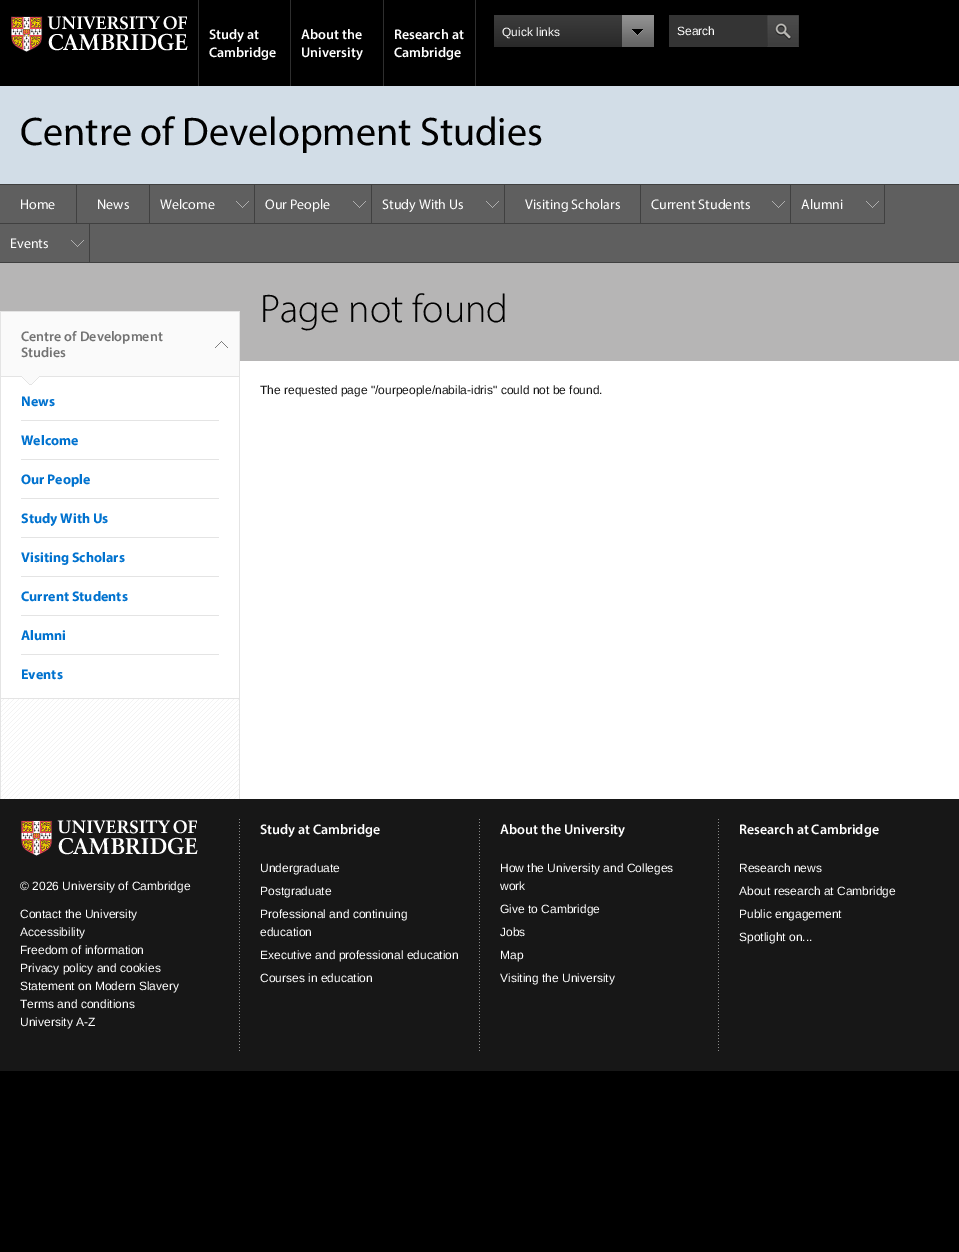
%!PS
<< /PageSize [959 1252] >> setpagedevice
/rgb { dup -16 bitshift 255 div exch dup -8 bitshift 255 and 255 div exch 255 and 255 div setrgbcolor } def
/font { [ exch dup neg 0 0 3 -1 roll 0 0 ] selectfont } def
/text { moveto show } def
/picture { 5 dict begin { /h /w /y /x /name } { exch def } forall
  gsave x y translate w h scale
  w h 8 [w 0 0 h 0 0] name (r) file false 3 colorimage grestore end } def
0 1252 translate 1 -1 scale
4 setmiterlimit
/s1 { /Myriad-SemiBold 14 font 16#FFFFFF rgb } def
/s2 { /LiberationSans-Regular 12 font 16#FFFFFF rgb } def
/s3 { /Myriad-Regular 40 font 16#000000 rgb } def
/s4 { /Myriad-Regular 14 font 16#FFFFFF rgb } def
/s5 { /Myriad-Light 40 font 16#000000 rgb } def
/s6 { /Myriad-SemiBold 14 font 16#737373 rgb } def
/s7 { /Myriad-Bold 14 font 16#0072CF rgb } def
/s8 { /LiberationSans-Regular 12 font 16#171717 rgb } def
16#000000 rgb
0 0 959 1252 rectfill
(pic1.raw) 11 16 177 36 picture
16#2E2E2E rgb
198 0 1 86 rectfill
290 0 1 86 rectfill
s1
(Study at) 209 39 text
(Cambridge) 209 57 text
16#2E2E2E rgb
383 0 1 86 rectfill
s1
(About the) 301 39 text
(University) 301 57 text
16#2E2E2E rgb
475 0 1 86 rectfill
s1
(Research at) 394 39 text
(Cambridge) 394 57 text
gsave 494 15 moveto 622 15 lineto 622 47 lineto 494 47 lineto closepath clip newpath
<< /ShadingType 2 /ColorSpace /DeviceRGB /Coords [574 15 574 47] /Extend [true true] /Function << /FunctionType 2 /Domain [0 1] /C0 [0.239 0.239 0.239] /C1 [0.161 0.161 0.161] /N 1 >> >> shfill grestore
s2
(Quick links) 502 36 text
(pic2.raw) 622 15 32 32 picture
16#343434 rgb
669 15 98 32 rectfill
s2
(Search) 677 35 text
(pic3.raw) 767 15 32 32 picture
16#D2DDE7 rgb
0 86 959 98 rectfill
s3
(Centre of Development Studies) 20 145 text
16#5F5F5F rgb
90 185 869 77 rectfill
16#404040 rgb
885 184 74 1 rectfill
90 262 869 1 rectfill
16#5F5F5F rgb
0 185 76 38 rectfill
16#404040 rgb
0 184 372 1 rectfill
76 184 1 40 rectfill
s4
(Home) 20 209 text
16#5F5F5F rgb
77 185 13 38 rectfill
16#404040 rgb
149 184 1 40 rectfill
0 223 150 1 rectfill
s4
(News) 97 209 text
(pic4.raw) 236 201 13 7 picture
16#404040 rgb
254 184 1 40 rectfill
150 223 105 1 rectfill
s4
(Welcome) 160 209 text
(pic4.raw) 353 201 13 7 picture
16#404040 rgb
371 184 1 40 rectfill
255 223 117 1 rectfill
s4
(Our People) 265 209 text
(pic4.raw) 486 201 13 7 picture
16#404040 rgb
372 184 513 1 rectfill
504 184 1 40 rectfill
372 223 133 1 rectfill
s4
(Study With Us) 382 209 text
16#404040 rgb
640 184 1 40 rectfill
505 223 136 1 rectfill
s4
(Visiting Scholars) 525 209 text
(pic4.raw) 772 201 13 7 picture
16#404040 rgb
790 184 1 40 rectfill
641 223 150 1 rectfill
s4
(Current Students) 651 209 text
(pic4.raw) 866 201 13 7 picture
16#404040 rgb
884 184 1 40 rectfill
791 223 94 1 rectfill
s4
(Alumni) 801 209 text
16#5F5F5F rgb
0 224 89 38 rectfill
(pic4.raw) 71 240 13 7 picture
16#404040 rgb
89 223 1 40 rectfill
0 262 90 1 rectfill
s4
(Events) 10 248 text
16#B6B5B5 rgb
0 263 959 98 rectfill
s5
(Page not found) 260 322 text
16#FFFFFF rgb
1 361 958 438 rectfill
(pic5.raw) 1 699 238 100 picture
16#E4E4E4 rgb
0 311 240 1 rectfill
239 311 1 488 rectfill
0 311 1 488 rectfill
1 698 238 1 rectfill
16#FAFAFA rgb
1 312 238 64 rectfill
(pic6.raw) 215 341 13 7 picture
16#E4E4E4 rgb
1 376 238 1 rectfill
s6
(Centre of Development) 21 341 text
(Studies) 21 357 text
(pic7.raw) 22 376 17 9 picture
16#E4E4E4 rgb
21 420 198 1 rectfill
s7
(News) 21 406 text
16#E4E4E4 rgb
21 459 198 1 rectfill
s7
(Welcome) 21 445 text
16#E4E4E4 rgb
21 498 198 1 rectfill
s7
(Our People) 21 484 text
16#E4E4E4 rgb
21 537 198 1 rectfill
s7
(Study With Us) 21 523 text
16#E4E4E4 rgb
21 576 198 1 rectfill
s7
(Visiting Scholars) 21 562 text
16#E4E4E4 rgb
21 615 198 1 rectfill
s7
(Current Students) 21 601 text
16#E4E4E4 rgb
21 654 198 1 rectfill
s7
(Alumni) 21 640 text
(Events) 21 679 text
s8
(The requested page "/ourpeople/nabila-idris" could not be found.) 260 394 text
0 799 959 272 rectfill
(pic8.raw) 239 819 1 232 picture
(pic9.raw) 21 820 177 36 picture
s2
(© 2026 University of Cambridge) 20 890 text
(Contact the University) 20 918 text
(Accessibility) 20 936 text
(Freedom of information) 20 954 text
(Privacy policy and cookies) 20 972 text
(Statement on Modern Slavery) 20 990 text
(Terms and conditions) 20 1008 text
(University A-Z) 20 1026 text
(pic8.raw) 479 819 1 232 picture
s1
(Study at Cambridge) 260 834 text
s2
(Undergraduate) 260 872 text
(Postgraduate) 260 895 text
(Professional and continuing) 260 918 text
(education) 260 936 text
(Executive and professional education) 260 959 text
(Courses in education) 260 982 text
(pic8.raw) 718 819 1 232 picture
s1
(About the University) 500 834 text
s2
(How the University and Colleges) 500 872 text
(work) 500 890 text
(Give to Cambridge) 500 913 text
(Jobs) 500 936 text
(Map) 500 959 text
(Visiting the University) 500 982 text
s1
(Research at Cambridge) 739 834 text
s2
(Research news) 739 872 text
(About research at Cambridge) 739 895 text
(Public engagement) 739 918 text
(Spotlight on...) 739 941 text
showpage
